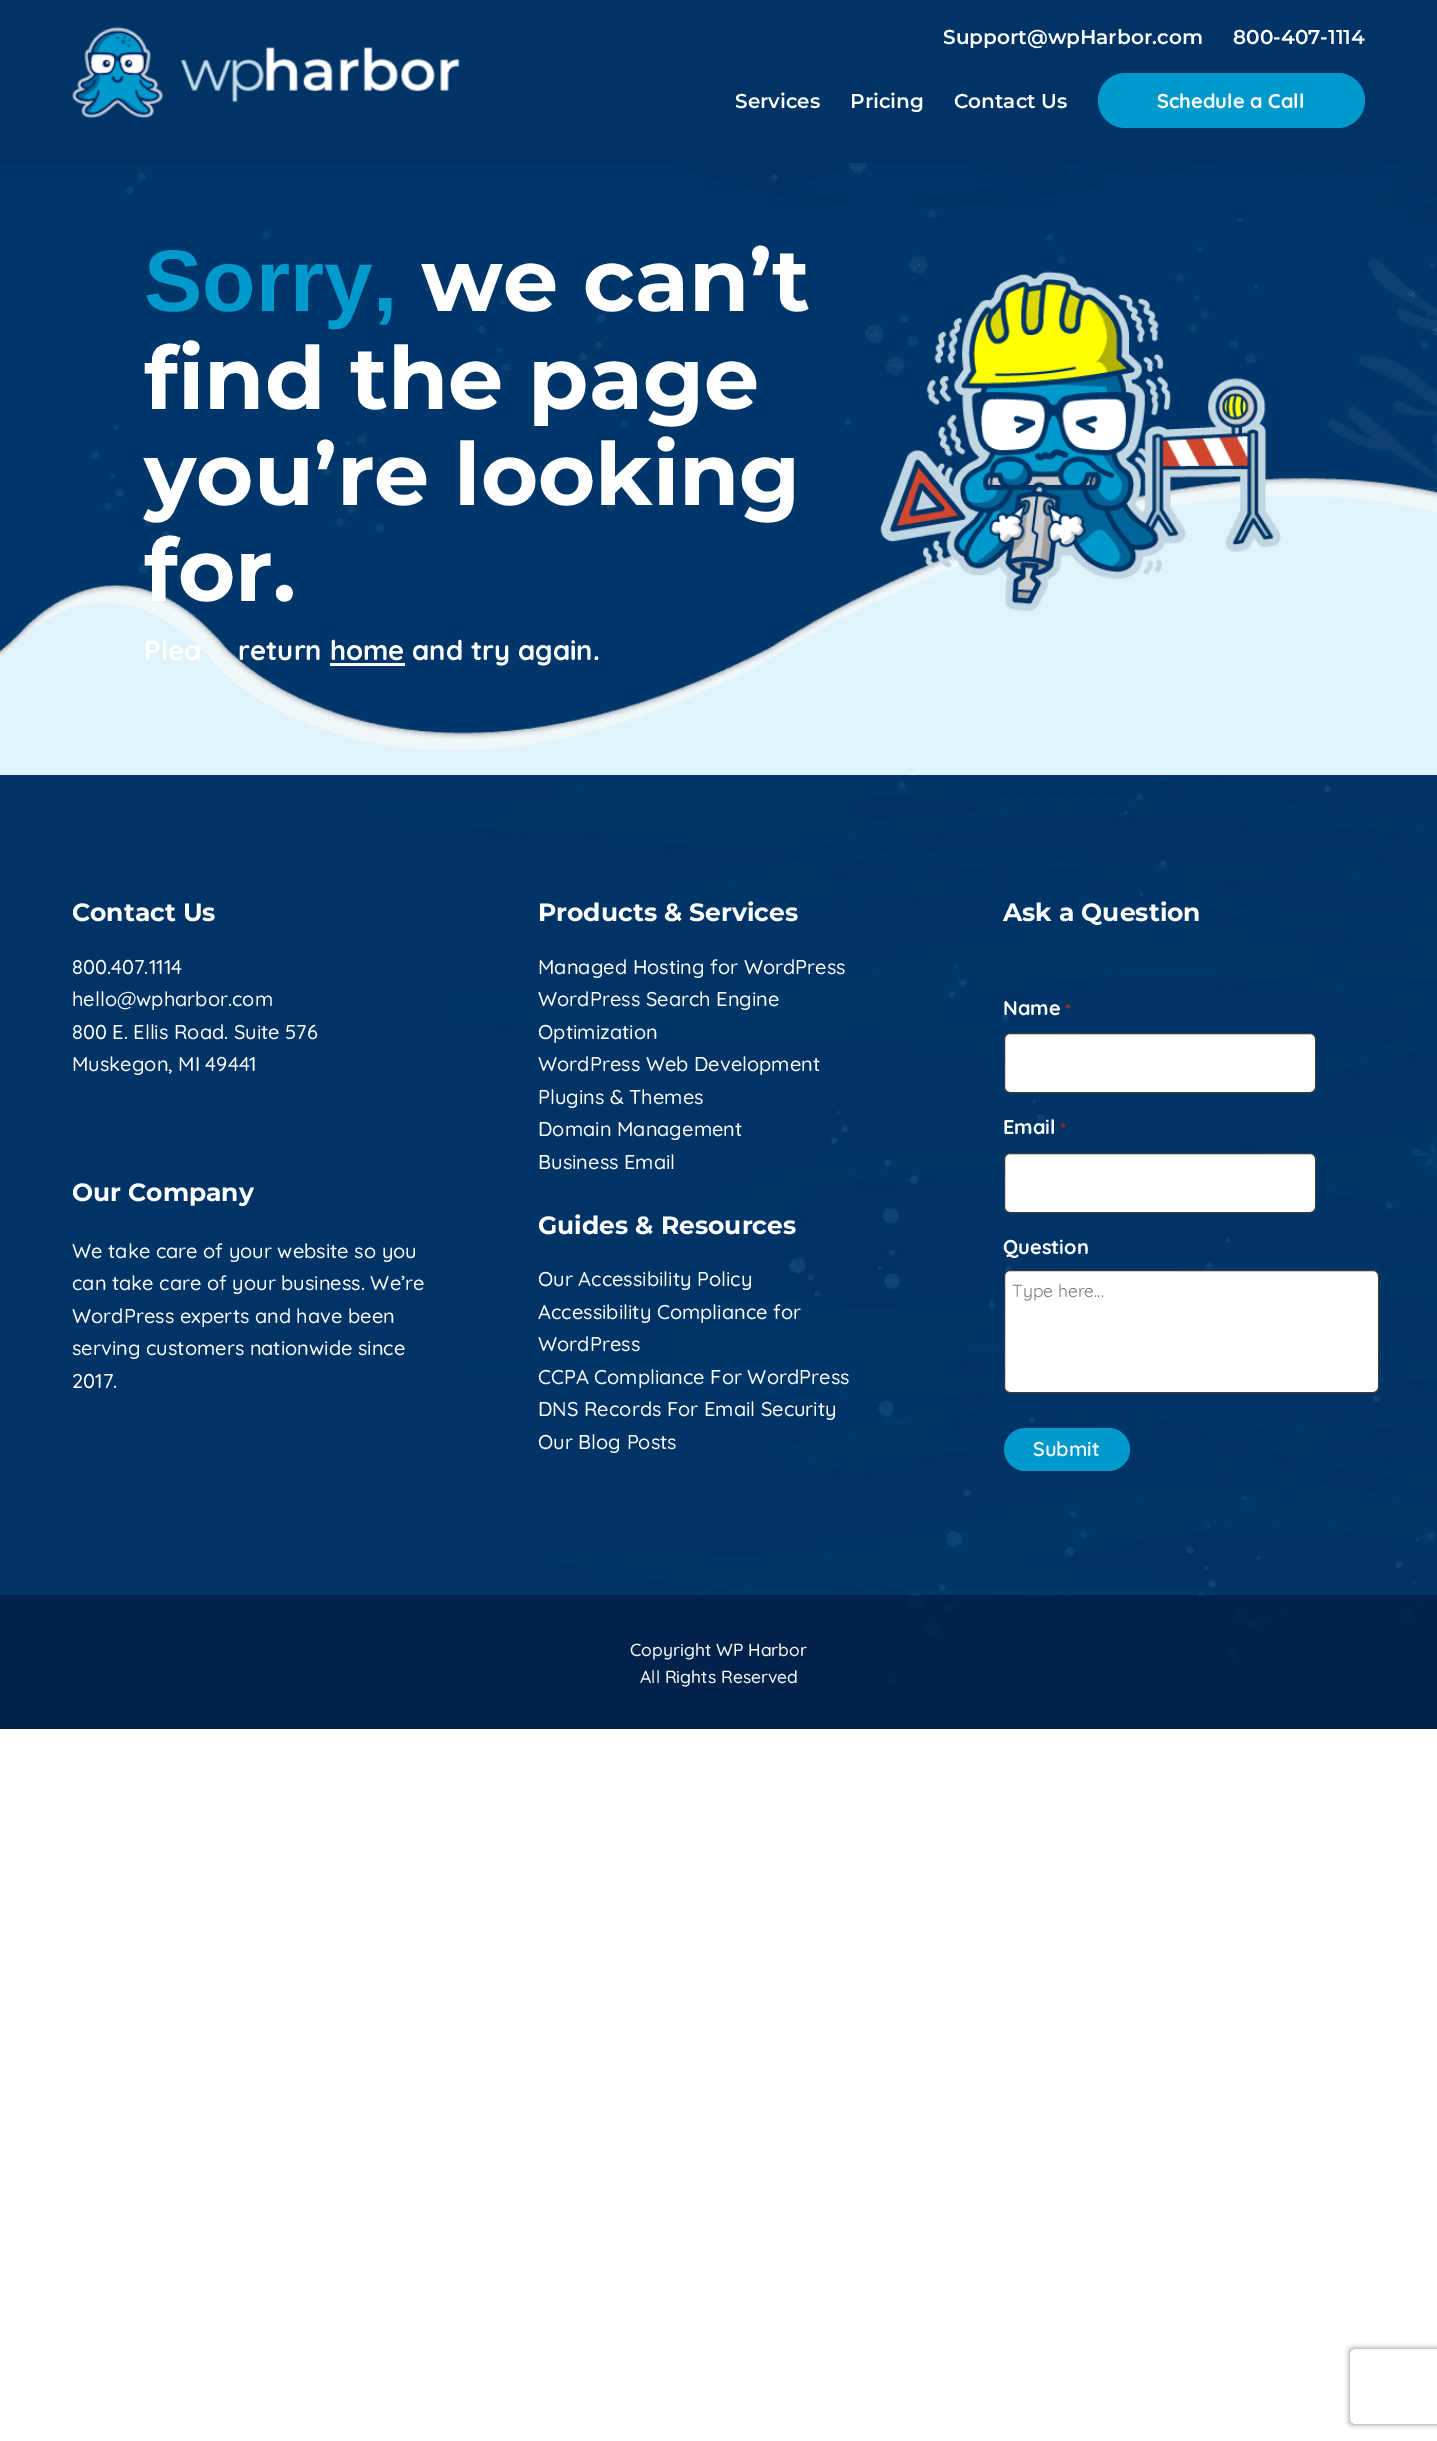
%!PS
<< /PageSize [1437 2441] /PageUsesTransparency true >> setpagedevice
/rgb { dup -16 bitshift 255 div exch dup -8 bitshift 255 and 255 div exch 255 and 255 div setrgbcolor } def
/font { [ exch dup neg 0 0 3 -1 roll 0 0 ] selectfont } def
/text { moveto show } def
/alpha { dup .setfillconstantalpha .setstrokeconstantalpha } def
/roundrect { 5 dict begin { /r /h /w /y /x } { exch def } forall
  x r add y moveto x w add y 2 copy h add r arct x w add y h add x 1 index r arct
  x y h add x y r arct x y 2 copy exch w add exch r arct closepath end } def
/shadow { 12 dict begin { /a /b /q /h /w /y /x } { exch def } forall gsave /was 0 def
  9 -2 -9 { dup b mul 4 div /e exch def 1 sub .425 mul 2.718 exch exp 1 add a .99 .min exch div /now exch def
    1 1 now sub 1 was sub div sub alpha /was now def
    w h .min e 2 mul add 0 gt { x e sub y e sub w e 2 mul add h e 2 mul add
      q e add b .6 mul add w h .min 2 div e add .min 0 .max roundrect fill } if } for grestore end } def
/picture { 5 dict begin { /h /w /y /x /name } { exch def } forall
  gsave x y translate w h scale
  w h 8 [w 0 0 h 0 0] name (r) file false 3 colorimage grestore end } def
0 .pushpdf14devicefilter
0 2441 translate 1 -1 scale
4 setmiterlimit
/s1 { /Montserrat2-Thin 20.1 font 16#FFFFFF rgb } def
/s2 { /Montserrat2-Thin 20 font 16#FFFFFF rgb } def
/s3 { /Quicksand-Light 20 font 16#FFFFFF rgb } def
/s4 { /LiberationSans-Bold 87.5 font 16#0099CC rgb } def
/s5 { /Montserrat-Thin 87.5 font 16#FFFFFF rgb } def
/s6 { /Quicksand-Light 27.5 font 16#FFFFFF rgb } def
/s7 { /Montserrat-Thin 25 font 16#FFFFFF rgb } def
/s8 { /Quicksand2-Light 20 font 16#FFFFFF rgb } def
/s9 { /Quicksand-Light 16 font 16#C02B0A rgb } def
/s10 { /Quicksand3-Light 17.5 font 16#757575 rgb } def
/s11 { /Quicksand-SemiBold 20 font 16#FFFFFF rgb } def
/s12 { /Quicksand2-Light 17.5 font 16#FFFFFF rgb } def
16#FFFFFF rgb
0 0 1437 2441 rectfill
16#003366 rgb
0 0 1437 163 rectfill
(pic1.raw) 72 27 388 92 picture
s1
(Support@wpHarbor.com) 943 44 text
(800-407-1114) 1233 44 text
s2
(Services) 735 108 text
(Pricing) 850 108 text
(Contact Us) 954 108 text
16#0099CC rgb
1098 73 267 55 27.5 roundrect fill
s3
(Schedule a Call) 1157 108 text
16#DFF3FA rgb
0 495 1437 280 rectfill
(pic2.raw) 0 163 1437 588 picture
s4
(Sorry,) 144 311 text
s5
(we can’t) 421 311 text
(find the page) 144 409 text
(you’re looking) 144 505 text
(for.) 144 601 text
s6
(Plea) 144 660 text
(return home and try again.) 238 660 text
330 663 75 3 rectfill
(pic3.raw) 880 271 401 340 picture
16#001C42 rgb
0 1728 1437 1 rectfill
(pic4.raw) 0 775 1437 954 picture
s7
(Contact Us) 72 921 text
s8
(800.407.1114) 72 974 text
(hello@wpharbor.com) 72 1006 text
(800 E. Ellis Road. Suite 576) 72 1039 text
(Muskegon, MI 49441) 72 1071 text
s7
(Our Company) 72 1201 text
s8
(We take care of your website so you) 72 1258 text
(can take care of your business. We’re) 72 1290 text
(WordPress experts and have been) 72 1323 text
(serving customers nationwide since) 72 1355 text
(2017.) 72 1388 text
s7
(Products & Services) 538 921 text
s8
(Managed Hosting for WordPress) 538 974 text
(WordPress Search Engine) 538 1006 text
(Optimization) 538 1039 text
(WordPress Web Development) 538 1071 text
(Plugins & Themes) 538 1104 text
(Domain Management) 538 1136 text
(Business Email) 538 1169 text
s7
(Guides & Resources) 538 1234 text
s8
(Our Accessibility Policy) 538 1286 text
(Accessibility Compliance for) 538 1319 text
(WordPress) 538 1351 text
(CCPA Compliance For WordPress) 538 1384 text
(DNS Records For Email Security) 538 1416 text
(Our Blog Posts) 538 1449 text
s7
(Ask a Question) 1003 921 text
s3
(Name) 1003 1015 text
s9
(*) 1065 1015 text
16#FFFFFF rgb
1004.5 1033.5 311 59 5.5 roundrect gsave fill grestore
16#3C3C3C rgb
stroke
s3
(Email) 1003 1134 text
s9
(*) 1060 1134 text
16#FFFFFF rgb
1004.5 1153.5 311 59 5.5 roundrect gsave fill grestore
16#3C3C3C rgb
stroke
s3
(Question) 1003 1254 text
1004.5 1270.5 374 122 5.5 roundrect gsave fill grestore
16#3C3C3C rgb
stroke
s10
(Type here...) 1012 1297 text
16#0099CC rgb
1004 1428 126 43 21.5 roundrect fill
s11
(Submit) 1033 1456 text
0.75 alpha
16#001C42 rgb
0 1595 1437 134 rectfill
1 alpha
s12
(Copyright WP Harbor) 630 1656 text
(All Rights Reserved) 640 1683 text
gsave
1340 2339 moveto 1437 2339 lineto 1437 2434 lineto 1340 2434 lineto closepath 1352.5 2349 moveto 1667.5 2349 lineto 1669 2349 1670 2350 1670 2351.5 curveto 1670 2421.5 lineto 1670 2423 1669 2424 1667.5 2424 curveto 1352.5 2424 lineto 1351 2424 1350 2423 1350 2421.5 curveto 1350 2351.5 lineto 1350 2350 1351 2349 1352.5 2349 curveto closepath eoclip newpath
16#808080 rgb
1350 2349 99 75 2.5 3 1 shadow
grestore
.poppdf14devicefilter showpage
